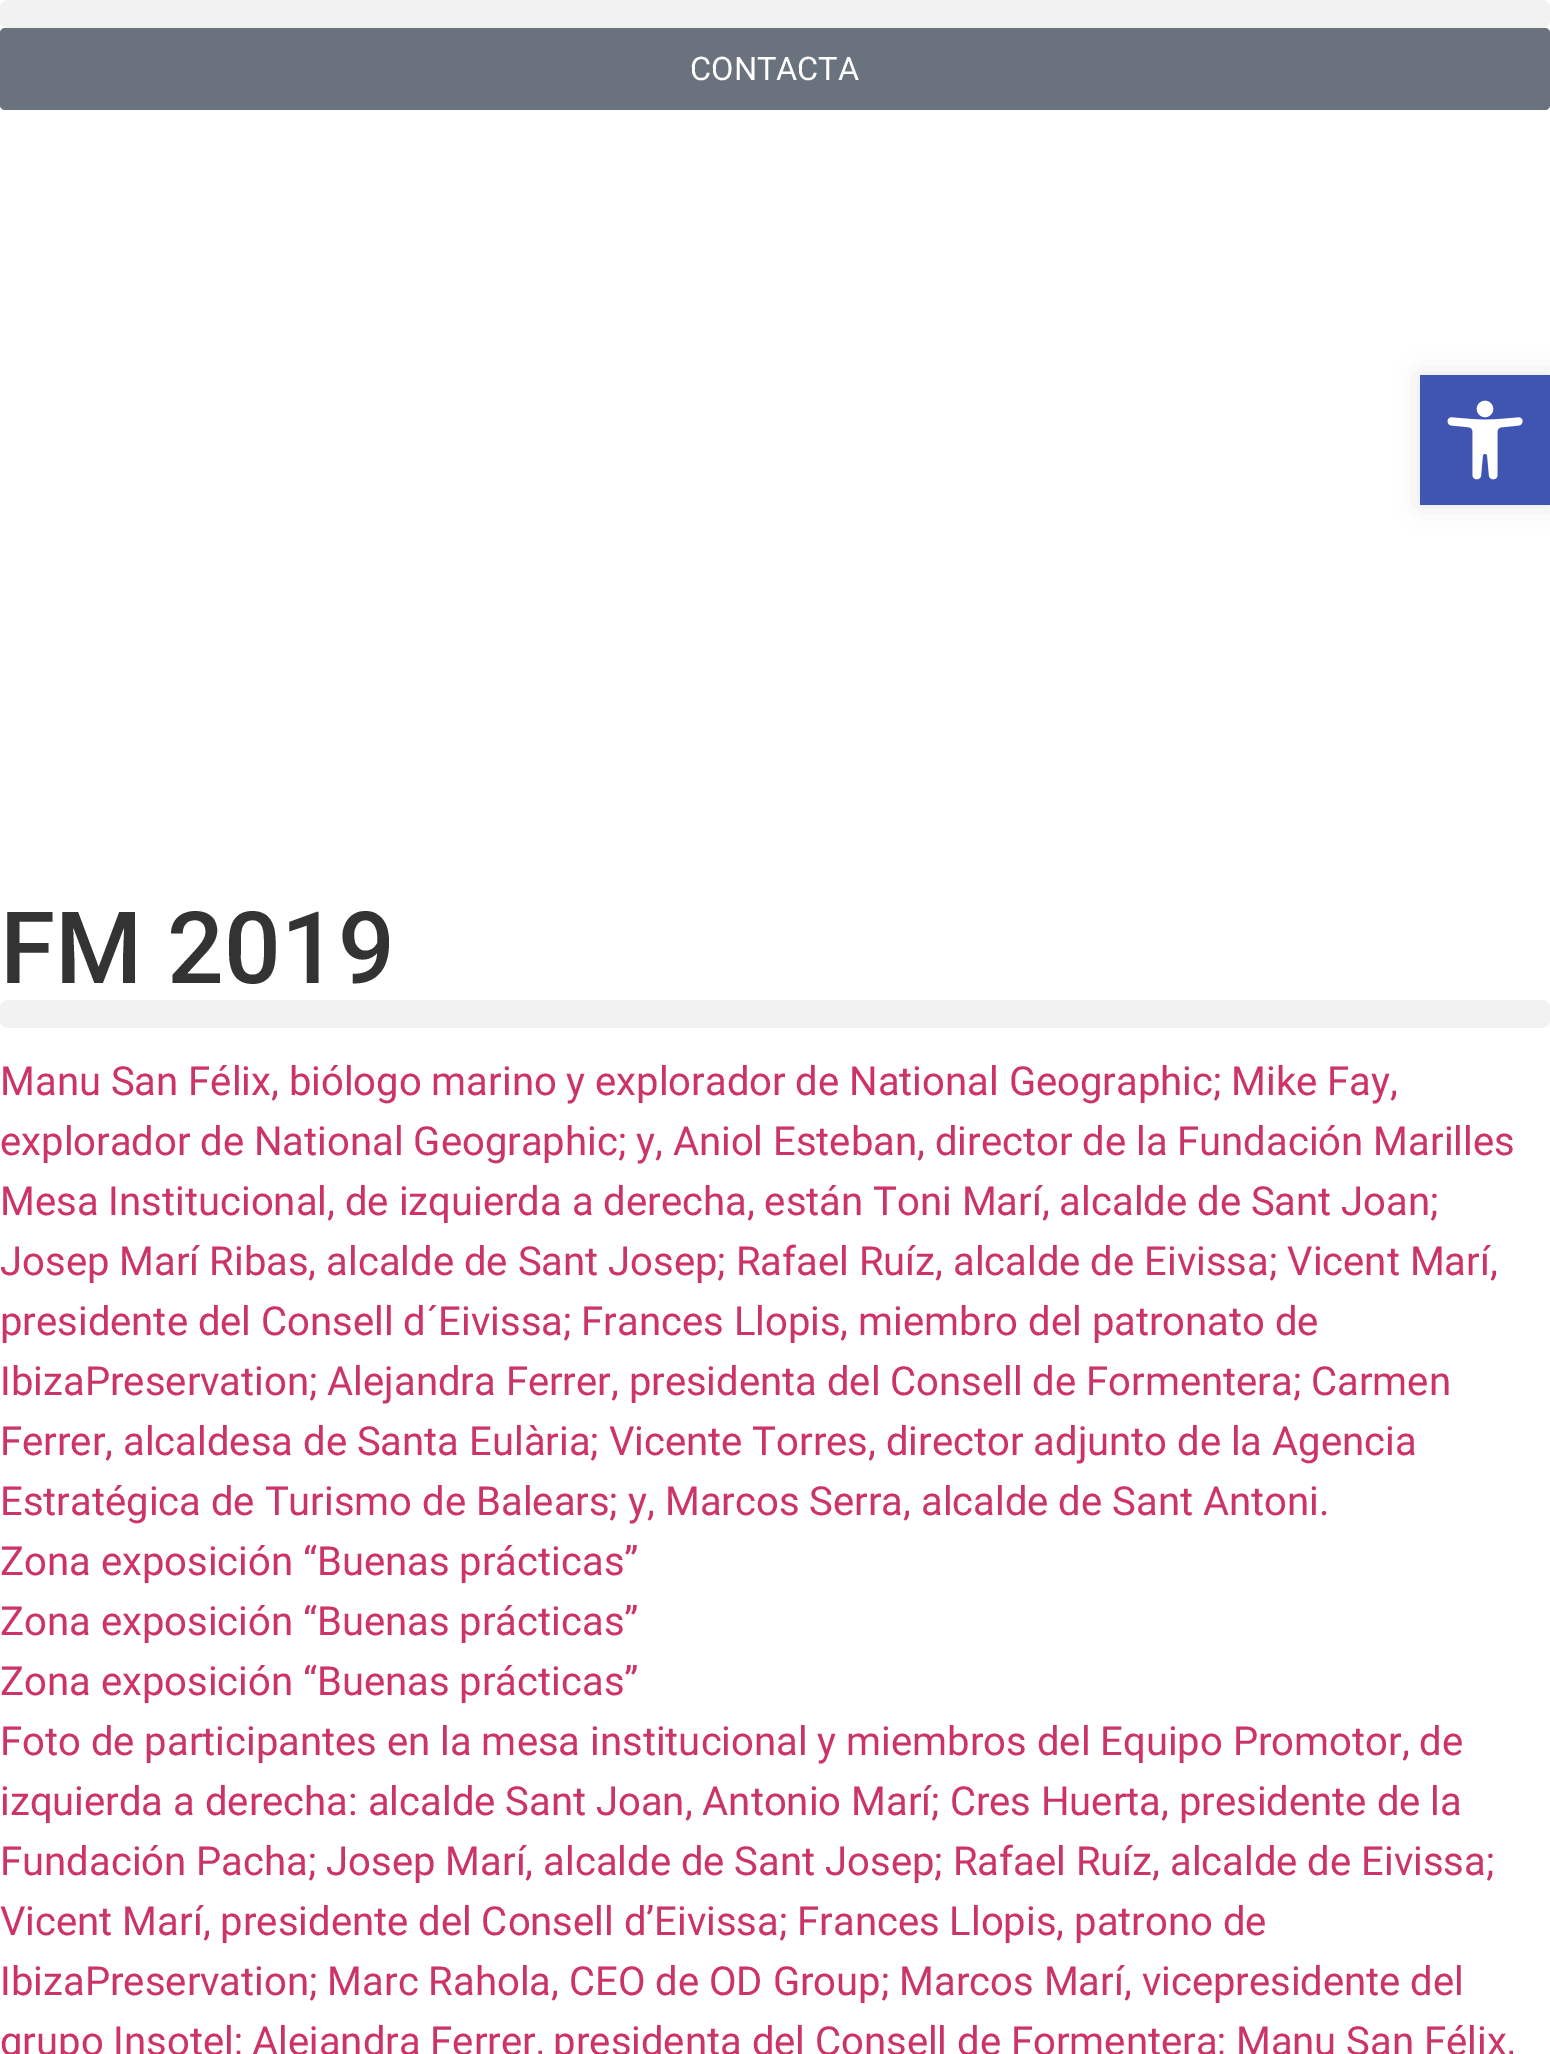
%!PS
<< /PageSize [1550 2054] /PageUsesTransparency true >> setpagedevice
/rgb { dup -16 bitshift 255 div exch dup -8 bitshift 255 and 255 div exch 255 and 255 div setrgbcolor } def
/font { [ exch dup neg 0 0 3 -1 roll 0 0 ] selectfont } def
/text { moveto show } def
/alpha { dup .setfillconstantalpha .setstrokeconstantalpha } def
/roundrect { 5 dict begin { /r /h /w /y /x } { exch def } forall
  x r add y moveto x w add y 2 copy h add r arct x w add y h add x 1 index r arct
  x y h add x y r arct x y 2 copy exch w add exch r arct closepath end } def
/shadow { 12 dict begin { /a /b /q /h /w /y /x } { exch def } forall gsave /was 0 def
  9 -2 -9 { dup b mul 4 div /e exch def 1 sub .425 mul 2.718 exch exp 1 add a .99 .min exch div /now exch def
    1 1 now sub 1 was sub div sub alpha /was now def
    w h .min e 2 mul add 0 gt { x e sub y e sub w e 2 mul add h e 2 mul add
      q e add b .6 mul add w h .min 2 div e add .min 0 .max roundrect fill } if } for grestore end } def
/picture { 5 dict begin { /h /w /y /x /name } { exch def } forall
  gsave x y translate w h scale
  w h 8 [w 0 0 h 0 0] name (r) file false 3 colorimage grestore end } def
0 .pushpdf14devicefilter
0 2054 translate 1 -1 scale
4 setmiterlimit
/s1 { /Roboto-Regular 32.5 font 16#FFFFFF rgb } def
/s2 { /Roboto-Medium 100 font 16#333333 rgb } def
/s3 { /Roboto-Regular 40 font 16#CC3366 rgb } def
16#FFFFFF rgb
0 0 1550 2054 rectfill
16#F2F2F2 rgb
0 0 1550 28 8 roundrect fill
16#69727D rgb
0 28 1550 82 5 roundrect fill
s1
(CONTACTA) 690 80 text
16#000000 rgb
1420 375 130 130 0 12.5 0.1 shadow
16#4054B2 rgb
1420 375 130 130 rectfill
(pic1.raw) 1447 400 76 80 picture
s2
(FM 2019) 0 983 text
16#F2F2F2 rgb
0 1000 1550 28 8 roundrect fill
s3
(Manu San Félix, biólogo marino y explorador de National Geographic; Mike Fay,) 0 1095 text
(explorador de National Geographic; y, Aniol Esteban, director de la Fundación Marilles) 0 1155 text
(Mesa Institucional, de izquierda a derecha, están Toni Marí, alcalde de Sant Joan;) 0 1215 text
(Josep Marí Ribas, alcalde de Sant Josep; Rafael Ruíz, alcalde de Eivissa; Vicent Marí,) 0 1275 text
(presidente del Consell d´Eivissa; Frances Llopis, miembro del patronato de) 0 1335 text
(IbizaPreservation; Alejandra Ferrer, presidenta del Consell de Formentera; Carmen) 0 1395 text
(Ferrer, alcaldesa de Santa Eulària; Vicente Torres, director adjunto de la Agencia) 0 1455 text
(Estratégica de Turismo de Balears; y, Marcos Serra, alcalde de Sant Antoni.) 0 1515 text
(Zona exposición “Buenas prácticas”) 0 1575 text
(Zona exposición “Buenas prácticas”) 0 1635 text
(Zona exposición “Buenas prácticas”) 0 1695 text
(Foto de participantes en la mesa institucional y miembros del Equipo Promotor, de) 0 1755 text
(izquierda a derecha: alcalde Sant Joan, Antonio Marí; Cres Huerta, presidente de la) 0 1815 text
(Fundación Pacha; Josep Marí, alcalde de Sant Josep; Rafael Ruíz, alcalde de Eivissa;) 0 1875 text
(Vicent Marí, presidente del Consell d’Eivissa; Frances Llopis, patrono de) 0 1935 text
(IbizaPreservation; Marc Rahola, CEO de OD Group; Marcos Marí, vicepresidente del) 0 1995 text
(grupo Insotel; Alejandra Ferrer, presidenta del Consell de Formentera; Manu San Félix,) 0 2055 text
.poppdf14devicefilter showpage
